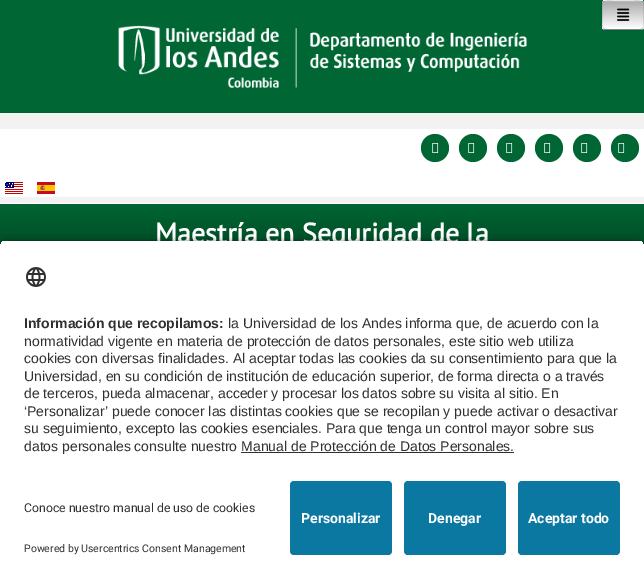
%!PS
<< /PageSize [644 579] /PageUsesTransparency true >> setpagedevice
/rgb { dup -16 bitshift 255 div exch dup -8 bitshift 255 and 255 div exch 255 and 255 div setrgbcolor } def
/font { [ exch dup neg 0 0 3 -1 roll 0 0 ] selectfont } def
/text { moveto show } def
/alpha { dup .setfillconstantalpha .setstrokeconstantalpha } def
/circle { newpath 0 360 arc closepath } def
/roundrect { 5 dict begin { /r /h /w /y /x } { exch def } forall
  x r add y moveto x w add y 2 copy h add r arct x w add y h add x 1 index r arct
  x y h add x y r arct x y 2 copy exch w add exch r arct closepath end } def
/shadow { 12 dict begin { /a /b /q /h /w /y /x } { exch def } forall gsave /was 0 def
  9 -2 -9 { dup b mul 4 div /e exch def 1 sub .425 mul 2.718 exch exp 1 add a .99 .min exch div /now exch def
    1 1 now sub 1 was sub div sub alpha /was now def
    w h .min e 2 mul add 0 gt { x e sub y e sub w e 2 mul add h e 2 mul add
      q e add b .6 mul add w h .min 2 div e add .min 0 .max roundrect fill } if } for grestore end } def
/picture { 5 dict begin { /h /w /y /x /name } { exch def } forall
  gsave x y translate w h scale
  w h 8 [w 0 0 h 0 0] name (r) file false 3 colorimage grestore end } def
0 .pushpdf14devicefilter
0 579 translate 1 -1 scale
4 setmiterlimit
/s1 { /PTSans-Bold 28 font 16#FFFFFF rgb } def
/s2 { /LiberationSans-Bold 14 font 16#303030 rgb } def
/s3 { /LiberationSans-Regular 14 font 16#303030 rgb } def
/s4 { /Roboto-Regular 12.25 font 16#303030 rgb } def
/s5 { /Roboto-Regular 10.5 font 16#303030 rgb } def
/s6 { /Roboto-Bold 14 font 16#FFFFFF rgb } def
16#F2F2F2 rgb
0 0 644 579 rectfill
(pic1.raw) 0 0 644 113 picture
gsave
602 0 42 30 4 roundrect clip newpath
gsave 602 0 moveto 644 0 lineto 644 1 lineto 602 1 lineto closepath clip newpath
<< /ShadingType 2 /ColorSpace /DeviceRGB /Coords [623 -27 623 1] /Extend [true true] /Function << /FunctionType 2 /Domain [0 1] /C0 [0.667 0.667 0.667] /C1 [1 1 1] /N 1 >> >> shfill grestore
gsave 602 1 moveto 644 1 lineto 644 29 lineto 602 29 lineto closepath clip newpath
<< /ShadingType 2 /ColorSpace /DeviceRGB /Coords [623 1 623 29] /Extend [true true] /Function << /FunctionType 2 /Domain [0 1] /C0 [0.667 0.667 0.667] /C1 [1 1 1] /N 1 >> >> shfill grestore
gsave 602 29 moveto 644 29 lineto 644 30 lineto 602 30 lineto closepath clip newpath
<< /ShadingType 2 /ColorSpace /DeviceRGB /Coords [623 29 623 57] /Extend [true true] /Function << /FunctionType 2 /Domain [0 1] /C0 [0.667 0.667 0.667] /C1 [1 1 1] /N 1 >> >> shfill grestore
grestore
16#BDBDBD rgb
606 2 moveto 640 2 lineto 642 2 643 3 643 5 curveto 643 0 638 1 634 1 curveto 612 1 lineto 608 1 603 0 603 5 curveto 603 3 604 2 606 2 curveto closepath fill
0.25 alpha
16#000000 rgb
642.5 28.5 moveto 642 29 641 29.5 640 29.5 curveto 606 29.5 lineto 605 29.5 604 29 603.5 28.5 curveto stroke
0.1 alpha
603.5 28.5 moveto 601.5 26.5 602.5 18 602.5 15 curveto 602.5 2 599.5 0.5 611.5 0.5 curveto 634.5 0.5 lineto 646.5 0.5 643.5 2 643.5 15 curveto 643.5 18 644.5 26.5 642.5 28.5 curveto stroke
1 alpha
(pic2.raw) 617 8 13 13 picture
16#FFFFFF rgb
0 129 644 68 rectfill
16#006633 rgb
435 148 14 circle fill
(pic3.raw) 432 143 7 10 picture
473 148 14 circle fill
(pic3.raw) 468 143 7 10 picture
511 148 14 circle fill
(pic3.raw) 506 143 7 10 picture
549 148 14 circle fill
(pic3.raw) 544 143 7 10 picture
587 148 14 circle fill
(pic3.raw) 581 143 7 10 picture
625 148 14 circle fill
(pic3.raw) 618 143 7 10 picture
(pic4.raw) 5 182 18 12 picture
(pic5.raw) 37 182 18 12 picture
gsave 0 204 moveto 644 204 lineto 644 248 lineto 0 248 lineto closepath clip newpath
<< /ShadingType 2 /ColorSpace /DeviceRGB /Coords [322 204 322 376] /Extend [true true] /Function << /FunctionType 2 /Domain [0 1] /C0 [0 0.4 0.2] /C1 [0 0 0] /N 1 >> >> shfill grestore
16#FFFFFF rgb
0 203 644 1 rectfill
s1
(Maestría en Seguridad de la) 155 243 text
16#000000 rgb
0 243 644 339 8 3.5 0.8 shadow
gsave
8 240 moveto 636 240 lineto 640.5 240 644 243.5 644 248 curveto 644 473 lineto 0 473 lineto 0 248 lineto 0 243.5 3.5 240 8 240 curveto closepath clip newpath
16#FFFFFF rgb
0 241 644 232 rectfill
grestore
(pic6.raw) 26 267 20 20 picture
s2
(Información que recopilamos:) 24 328 text
s3
(la Universidad de los Andes informa que, de acuerdo con la) 228 328 text
(normatividad vigente en materia de protección de datos personales, este sitio web utiliza) 24 346 text
(cookies con diversas finalidades. Al aceptar todas las cookies da su consentimiento para que la) 24 363 text
(Universidad, en su condición de institución de educación superior, de forma directa o a través) 24 381 text
(de terceros, pueda almacenar, acceder y procesar los datos sobre su visita al sitio. En) 24 398 text
(‘Personalizar’ puede conocer las distintas cookies que se recopilan y puede activar o desactivar) 24 416 text
(su seguimiento, excepto las cookies esenciales. Para que tenga un control mayor sobre sus) 24 433 text
(datos personales consulte nuestro Manual de Protección de Datos Personales.) 24 451 text
241 452 273 1 rectfill
16#FFFFFF rgb
0 473 644 106 rectfill
s4
(Conoce nuestro manual de uso de cookies) 24 512 text
s5
(Powered by Usercentrics Consent Management) 24 552 text
16#0B78A1 rgb
290 481 102 74 4 roundrect fill
s6
(Personalizar) 301 523 text
16#0B78A1 rgb
404 481 102 74 4 roundrect fill
s6
(Denegar) 428 523 text
16#0B78A1 rgb
518 481 102 74 4 roundrect fill
s6
(Aceptar todo) 528 523 text
.poppdf14devicefilter showpage
